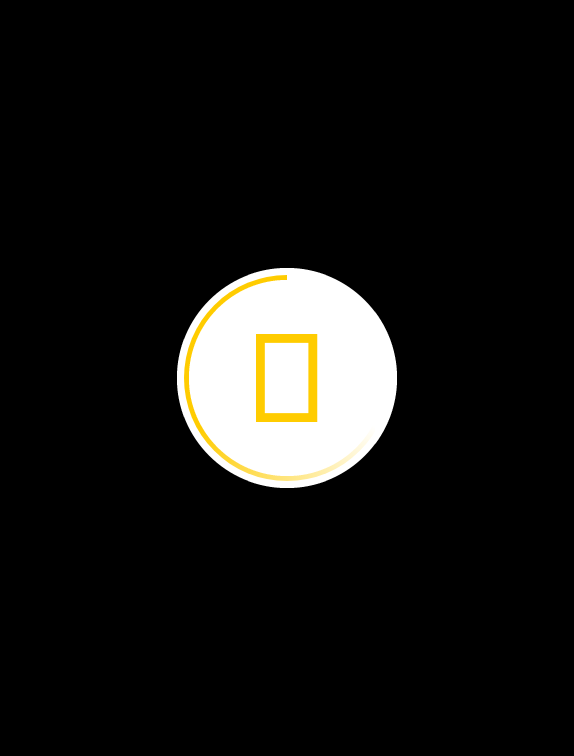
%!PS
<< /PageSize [574 756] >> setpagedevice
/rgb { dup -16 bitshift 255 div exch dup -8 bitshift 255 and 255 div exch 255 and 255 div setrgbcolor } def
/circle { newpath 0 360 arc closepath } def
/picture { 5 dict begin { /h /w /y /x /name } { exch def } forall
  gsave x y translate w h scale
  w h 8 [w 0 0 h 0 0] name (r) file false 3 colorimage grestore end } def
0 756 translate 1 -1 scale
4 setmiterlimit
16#000000 rgb
0 0 574 756 rectfill
16#FFFFFF rgb
287 378 110 circle fill
(pic1.raw) 184 275 191 206 picture
287 378 98 circle fill
(pic2.raw) 256 334 62 88 picture
showpage
